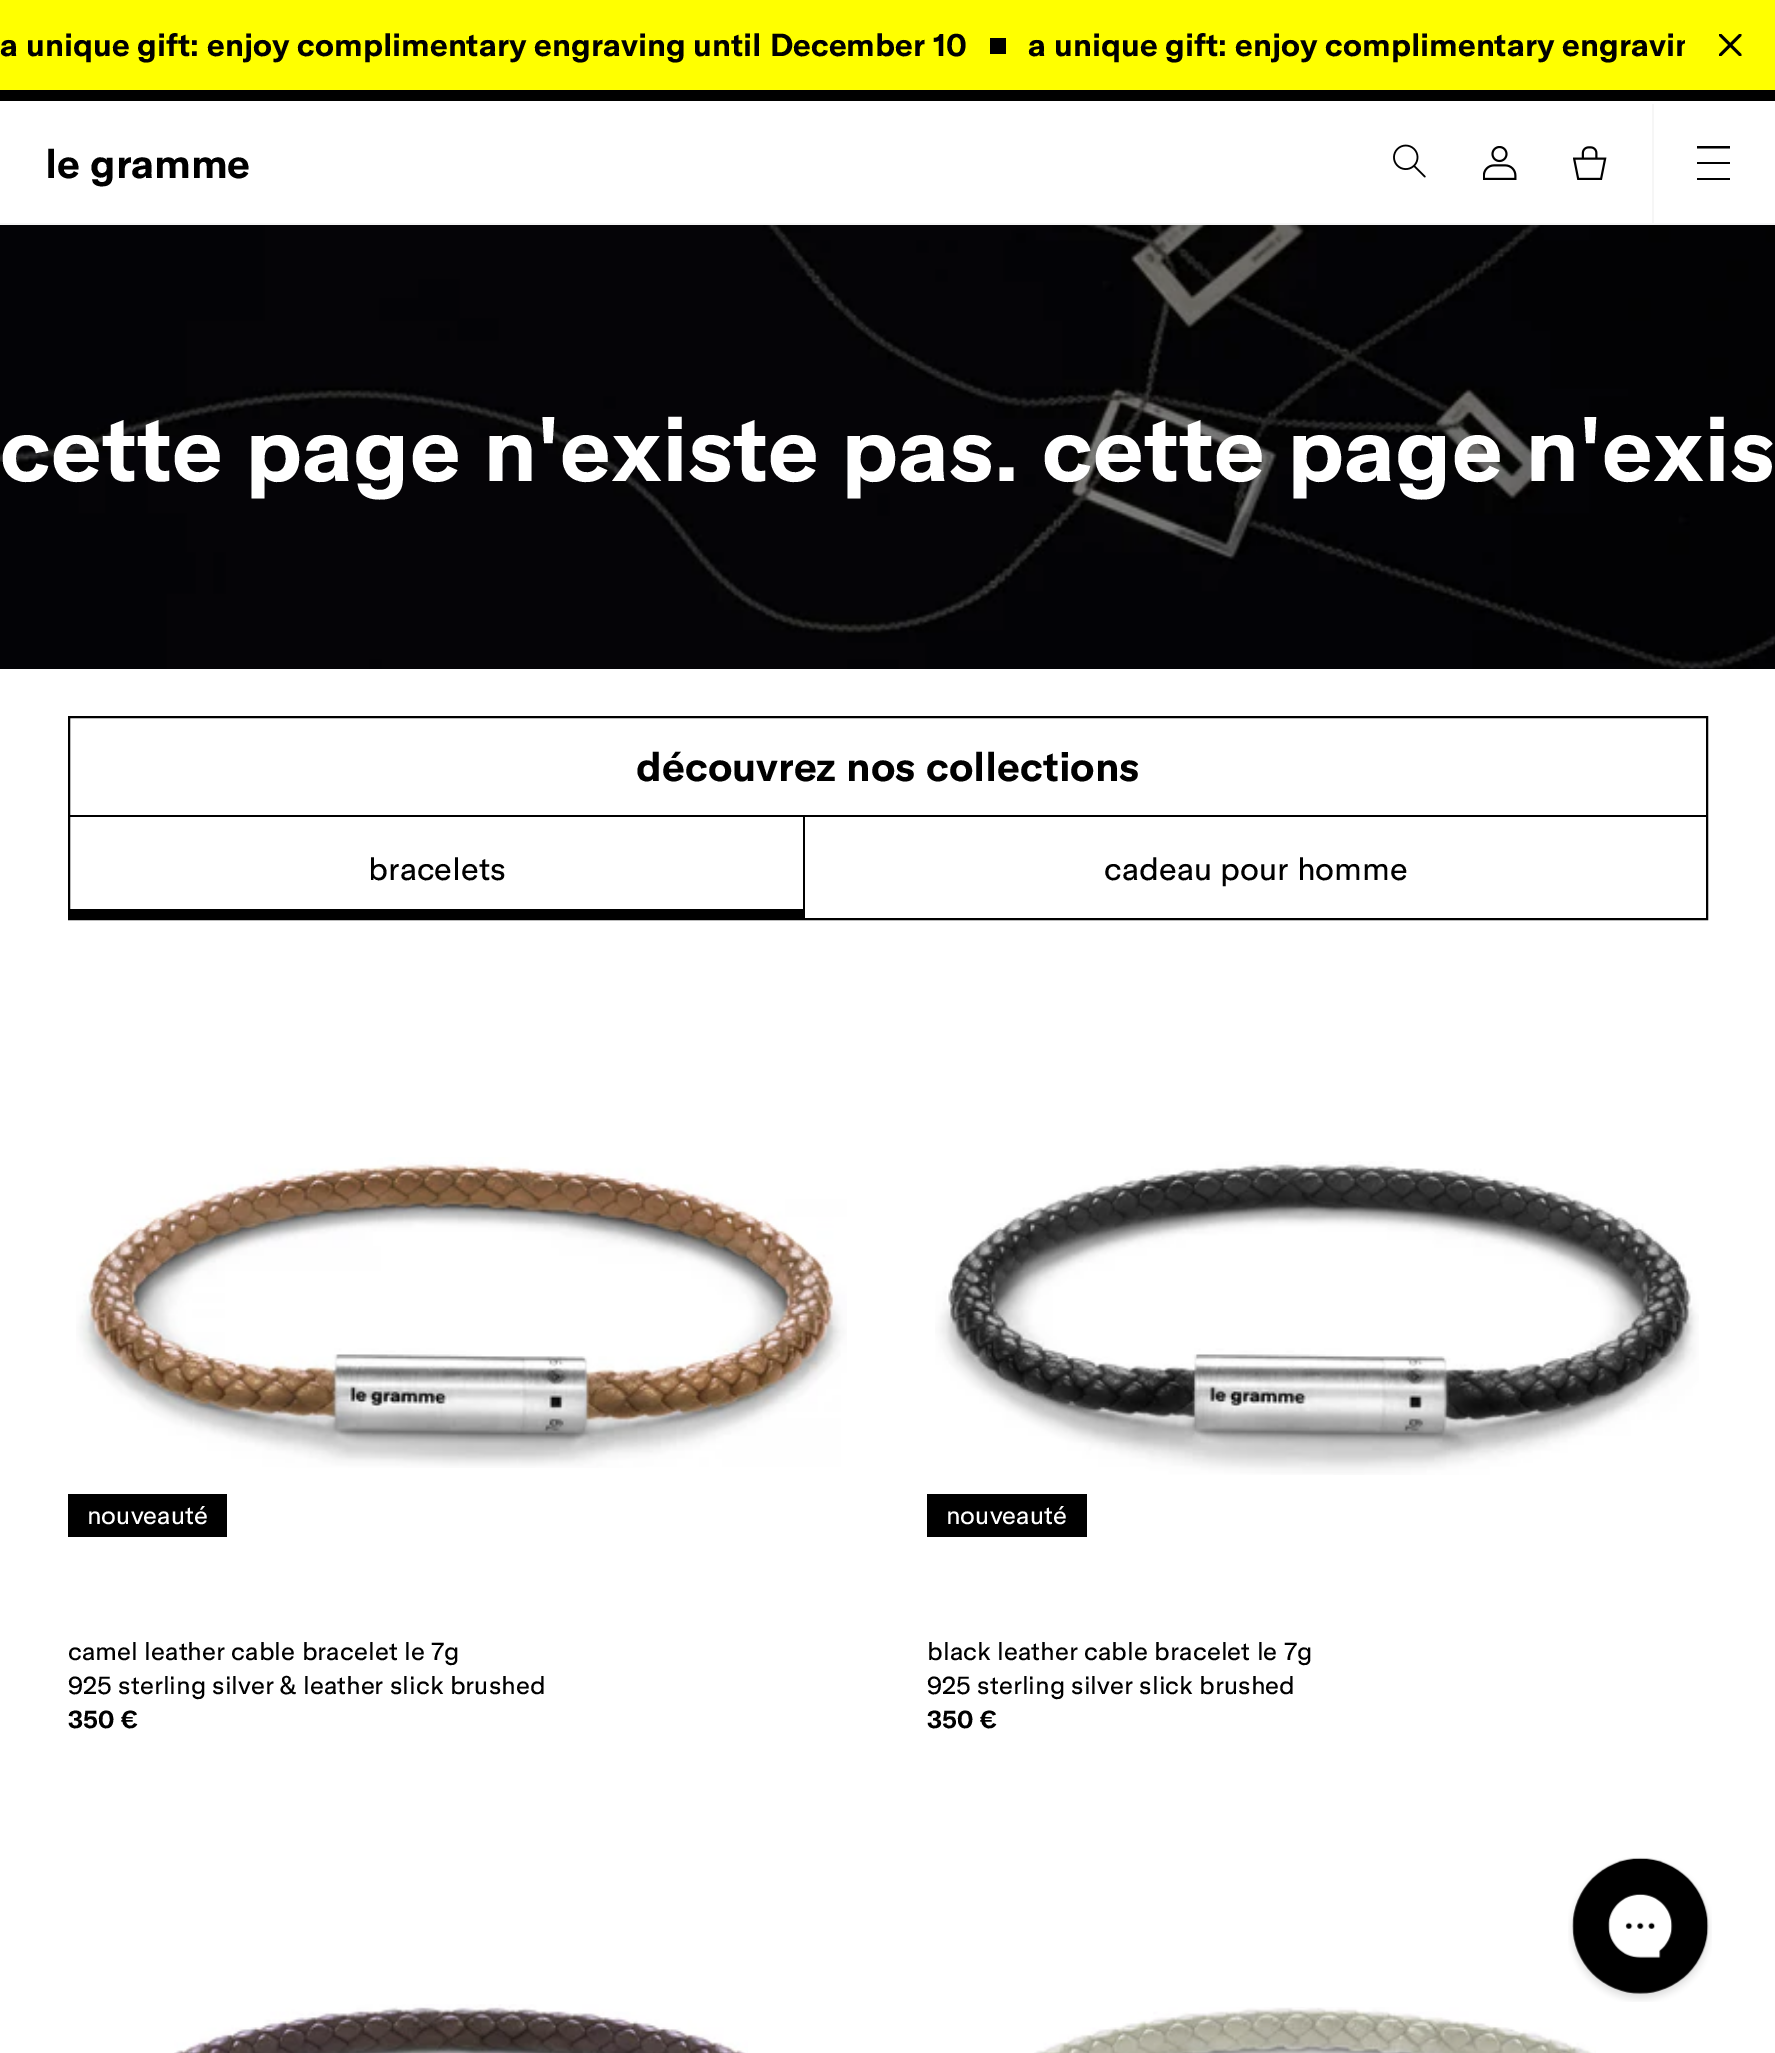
%!PS
<< /PageSize [1775 2053] >> setpagedevice
/rgb { dup -16 bitshift 255 div exch dup -8 bitshift 255 and 255 div exch 255 and 255 div setrgbcolor } def
/font { [ exch dup neg 0 0 3 -1 roll 0 0 ] selectfont } def
/text { moveto show } def
/picture { 5 dict begin { /h /w /y /x /name } { exch def } forall
  gsave x y translate w h scale
  w h 8 [w 0 0 h 0 0] name (r) file false 3 colorimage grestore end } def
0 2053 translate 1 -1 scale
4 setmiterlimit
/s1 { /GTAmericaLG-Bold 31.5 font 16#000000 rgb } def
/s2 { /GTAmericaLG-Bold 40.5 font 16#000000 rgb } def
/s3 { /GTAmericaLG-Bold 90 font 16#FFFFFF rgb } def
/s4 { /GTAmericaLG-Regular 31.5 font 16#000000 rgb } def
/s5 { /GTAmericaLG-Regular 24.75 font 16#FFFFFF rgb } def
/s6 { /GTAmericaLG-Regular 24.75 font 16#000000 rgb } def
/s7 { /GTAmericaLG-Bold 24.75 font 16#000000 rgb } def
16#FFFFFF rgb
0 0 1775 2053 rectfill
16#FFFF00 rgb
0 0 1775 90 rectfill
s1
(a unique gift: enjoy complimentary engraving until December 10) 0 56 text
990 38 16 16 rectfill
gsave
0 25 1685 40 rectclip
(a unique gift: enjoy complimentary engravin) 1028 56 text
grestore
(pic1.raw) 1719 34 23 22 picture
0 90 1775 11 rectfill
s2
(le gramme) 45 178 text
(pic2.raw) 1393 144 33 34 picture
(pic3.raw) 1483 146 34 34 picture
(pic4.raw) 1573 146 34 34 picture
16#F6F6F6 rgb
0 223 1775 2 rectfill
1652 104 2 121 rectfill
gsave
1697 146 33 34 rectclip
16#000000 rgb
1696.5 146 moveto 1730 146 lineto 1730 148.5 lineto 1696.5 148.5 lineto closepath 1696.5 162 moveto 1730 162 lineto 1730 164 lineto 1696.5 164 lineto closepath 1696.5 178 moveto 1730 178 lineto 1730 180 lineto 1696.5 180 lineto closepath eofill
grestore
(pic5.raw) 0 225 1775 444 picture
s3
(cette page n'existe pas. cette page n'exis) 0 481 text
16#000000 rgb
2 setlinewidth
69 717 1638 202 rectstroke
s2
(découvrez nos collections) 636 781 text
70 815 1636 2 rectfill
s4
(bracelets) 368 880 text
70 909 733 9 rectfill
803 815 2 103 rectfill
(cadeau pour homme) 1104 880 text
(pic6.raw) 76 1157 771 311 picture
68 1494 159 43 rectfill
s5
(nouveauté) 87 1524 text
s6
(camel leather cable bracelet le 7g) 68 1660 text
(925 sterling silver & leather slick brushed) 68 1694 text
s7
(350 €) 68 1728 text
(pic7.raw) 935 1161 764 314 picture
927 1494 160 43 rectfill
s5
(nouveauté) 946 1524 text
s6
(black leather cable bracelet le 7g) 927 1660 text
(925 sterling silver slick brushed) 927 1694 text
s7
(350 €) 927 1728 text
(pic8.raw) 174 2004 574 49 picture
(pic9.raw) 1034 2007 562 46 picture
(pic10.raw) 1568 1857 144 145 picture
showpage
